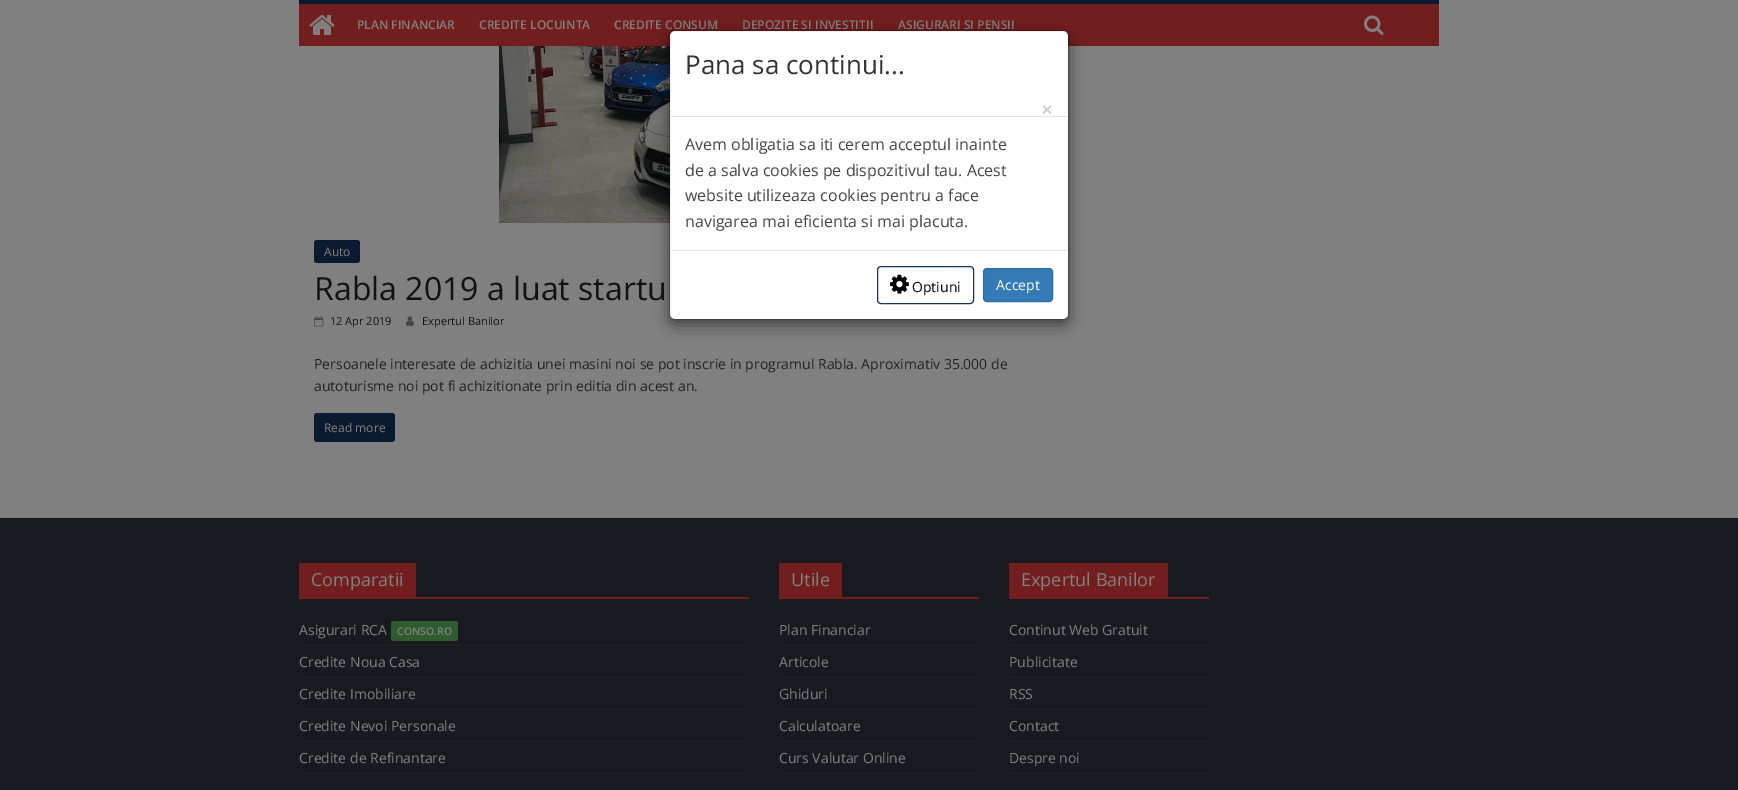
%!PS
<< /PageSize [1738 790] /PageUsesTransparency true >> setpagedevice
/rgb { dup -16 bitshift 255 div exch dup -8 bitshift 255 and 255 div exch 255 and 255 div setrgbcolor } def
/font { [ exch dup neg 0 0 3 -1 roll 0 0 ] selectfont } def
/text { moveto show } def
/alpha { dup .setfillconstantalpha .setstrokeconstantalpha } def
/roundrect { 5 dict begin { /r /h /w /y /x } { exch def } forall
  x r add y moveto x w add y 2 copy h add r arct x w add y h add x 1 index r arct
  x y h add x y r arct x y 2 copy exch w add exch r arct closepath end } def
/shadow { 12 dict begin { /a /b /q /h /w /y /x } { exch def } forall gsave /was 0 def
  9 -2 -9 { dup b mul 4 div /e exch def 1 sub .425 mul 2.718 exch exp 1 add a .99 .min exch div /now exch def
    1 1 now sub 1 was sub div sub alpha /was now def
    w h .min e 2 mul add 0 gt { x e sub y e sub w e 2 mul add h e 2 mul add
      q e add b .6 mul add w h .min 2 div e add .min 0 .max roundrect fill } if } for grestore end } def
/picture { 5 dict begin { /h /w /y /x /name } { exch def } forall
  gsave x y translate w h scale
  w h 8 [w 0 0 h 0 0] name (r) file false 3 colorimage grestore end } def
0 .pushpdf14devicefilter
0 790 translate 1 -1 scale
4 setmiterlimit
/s1 { /OpenSans-SemiBold 12 font 16#808080 rgb } def
/s2 { /OpenSans-Regular 26 font 16#333333 rgb } def
/s3 { /OpenSans-SemiBold 21 font 16#CCCCCC rgb } def
/s4 { /OpenSans-Regular 16 font 16#444444 rgb } def
/s5 { /OpenSans-Regular 14 font 16#000000 rgb } def
/s6 { /OpenSans-Regular 14 font 16#FFFFFF rgb } def
/s7 { /OpenSans-Regular 12 font 16#808080 rgb } def
/s8 { /OpenSans-Regular 32 font 16#121212 rgb } def
/s9 { /OpenSans-Regular 11 font 16#121212 rgb } def
/s10 { /OpenSans-Regular 14 font 16#222222 rgb } def
/s11 { /OpenSans-Regular 18 font 16#808080 rgb } def
/s12 { /OpenSans-Regular 14 font 16#808080 rgb } def
/s13 { /OpenSans-SemiBold 10.5 font 16#808080 rgb } def
16#808080 rgb
0 0 1738 790 rectfill
16#731E1E rgb
299 4 1140 42 rectfill
16#0A1B2F rgb
299 0 1140 4 rectfill
(pic1.raw) 309 15 26 20 picture
s1
(PLAN FINANCIAR) 357 29 text
(CREDITE LOCUINTA) 479 29 text
(CREDITE CONSUM) 614 29 text
(DEPOZITE SI INVESTITII) 742 29 text
(ASIGURARI SI PENSII) 898 29 text
(pic2.raw) 1364 15 20 20 picture
(pic4.raw) 499 46 171 177 picture
16#000000 rgb
669 35 400 290 6 7.5 0.5 shadow
16#FFFFFF rgb
670 31 398 288 5 roundrect fill
0.2 alpha
16#000000 rgb
669.5 30.5 399 289 5.5 roundrect stroke
1 alpha
16#E5E5E5 rgb
670 116 398 1 rectfill
s2
(Pana sa continui...) 685 74 text
s3
(×) 1041 117 text
s4
(Avem obligatia sa iti cerem acceptul inainte) 685 150 text
(de a salva cookies pe dispozitivul tau. Acest) 685 176 text
(website utilizeaza cookies pentru a face) 685 201 text
(navigarea mai eficienta si mai placuta.) 685 227 text
16#E5E5E5 rgb
670 250 398 1 rectfill
16#13355E rgb
877.5 266.5 96 37 3.5 roundrect stroke
(pic3.raw) 890 274 19 20 picture
s5
(Optiuni) 912 292 text
16#337AB7 rgb
983.5 268.5 69 33 3.5 roundrect gsave fill grestore
16#2E6DA4 rgb
stroke
s6
(Accept) 996 290 text
16#0A1B2F rgb
314 240 46 23 3 roundrect fill
s7
(Auto) 324 256 text
s8
(Rabla 2019 a luat startu) 314 300 text
(pic5.raw) 314 316 10 11 picture
s9
(12 Apr 2019) 330 325 text
(pic6.raw) 406 316 8 10 picture
(Expertul Banilor) 422 325 text
s10
(Persoanele interesate de achizitia unei masini noi se pot inscrie in programul Rabla. Aproximativ 35.000 de) 314 369 text
(autoturisme noi pot fi achizitionate prin editia din acest an.) 314 391 text
16#0A1B2F rgb
314 413 81 29 3 roundrect fill
s7
(Read more) 324 432 text
16#181A20 rgb
0 518 1738 272 rectfill
16#797979 rgb
0 517 1738 1 rectfill
16#731E1E rgb
299 597 450 2 rectfill
299 563 117 34 rectfill
s11
(Comparatii) 311 586 text
16#222222 rgb
299 645 450 1 rectfill
s12
(Asigurari RCA) 299 635 text
16#2E5C2E rgb
391 621 67 20 2.5 roundrect fill
s13
(CONSO.RO) 397 635 text
16#222222 rgb
299 677 450 1 rectfill
s12
(Credite Noua Casa) 299 667 text
16#222222 rgb
299 709 450 1 rectfill
s12
(Credite Imobiliare) 299 699 text
16#222222 rgb
299 741 450 1 rectfill
s12
(Credite Nevoi Personale) 299 731 text
16#222222 rgb
299 773 450 1 rectfill
s12
(Credite de Refinantare) 299 763 text
16#731E1E rgb
779 597 200 2 rectfill
779 563 63 34 rectfill
s11
(Utile) 791 586 text
16#222222 rgb
779 645 200 1 rectfill
s12
(Plan Financiar) 779 635 text
16#222222 rgb
779 677 200 1 rectfill
s12
(Articole) 779 667 text
16#222222 rgb
779 709 200 1 rectfill
s12
(Ghiduri) 779 699 text
16#222222 rgb
779 741 200 1 rectfill
s12
(Calculatoare) 779 731 text
16#222222 rgb
779 773 200 1 rectfill
s12
(Curs Valutar Online) 779 763 text
16#731E1E rgb
1009 597 200 2 rectfill
1009 563 159 34 rectfill
s11
(Expertul Banilor) 1021 586 text
16#222222 rgb
1009 645 200 1 rectfill
s12
(Continut Web Gratuit) 1009 635 text
16#222222 rgb
1009 677 200 1 rectfill
s12
(Publicitate) 1009 667 text
16#222222 rgb
1009 709 200 1 rectfill
s12
(RSS) 1009 699 text
16#222222 rgb
1009 741 200 1 rectfill
s12
(Contact) 1009 731 text
16#222222 rgb
1009 773 200 1 rectfill
s12
(Despre noi) 1009 763 text
.poppdf14devicefilter showpage
